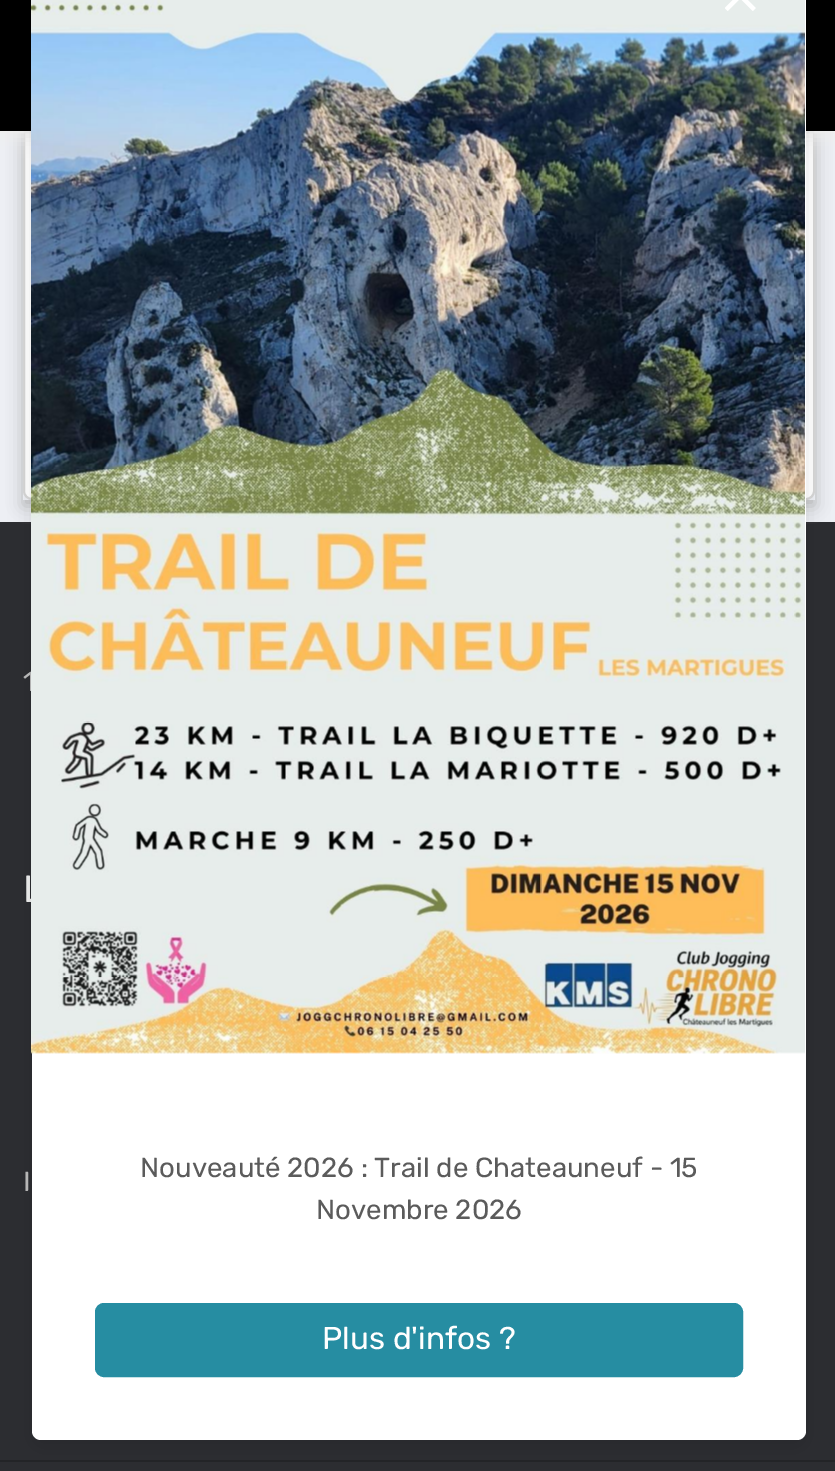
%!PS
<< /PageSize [835 1471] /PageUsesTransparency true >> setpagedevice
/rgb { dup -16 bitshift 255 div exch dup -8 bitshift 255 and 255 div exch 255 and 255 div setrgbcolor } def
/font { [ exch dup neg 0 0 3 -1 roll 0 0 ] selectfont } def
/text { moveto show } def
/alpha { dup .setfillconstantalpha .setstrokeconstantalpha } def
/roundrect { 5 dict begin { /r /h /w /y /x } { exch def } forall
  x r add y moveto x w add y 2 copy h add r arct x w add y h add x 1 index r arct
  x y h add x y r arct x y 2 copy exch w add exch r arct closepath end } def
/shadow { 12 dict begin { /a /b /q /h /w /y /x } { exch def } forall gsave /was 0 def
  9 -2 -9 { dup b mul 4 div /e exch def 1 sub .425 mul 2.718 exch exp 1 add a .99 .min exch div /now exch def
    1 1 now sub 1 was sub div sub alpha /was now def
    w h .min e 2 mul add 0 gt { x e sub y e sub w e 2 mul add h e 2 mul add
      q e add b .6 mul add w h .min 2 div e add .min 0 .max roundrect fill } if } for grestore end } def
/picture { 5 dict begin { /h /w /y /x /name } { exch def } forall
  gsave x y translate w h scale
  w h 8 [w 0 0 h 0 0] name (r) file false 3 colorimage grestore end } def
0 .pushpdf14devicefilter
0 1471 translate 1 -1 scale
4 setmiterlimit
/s1 { /Rubik-Regular 27.6 font 16#BCBCBC rgb } def
/s2 { /Rubik-Regular 38 font 16#EEEEEE rgb } def
/s3 { /Rubik-Regular 27.6 font 16#5B5B5B rgb } def
/s4 { /Rubik-Regular 31.5 font 16#FFFFFF rgb } def
16#EDEFF4 rgb
0 0 835 1471 rectfill
16#2C2D31 rgb
0 522 835 949 rectfill
gsave
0 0 moveto 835 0 lineto 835 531 lineto 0 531 lineto closepath 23 -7 moveto 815 -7 lineto 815 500 lineto 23 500 lineto closepath eoclip newpath
16#BCBCBC rgb
23 0 792 506 0 8 1 shadow
grestore
16#FFFFFF rgb
24 78 790 421 8 roundrect gsave fill grestore
16#D7D7D7 rgb
2 setlinewidth
stroke
16#EEEEEE rgb
0 7 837 133 0 8 1 shadow
16#000000 rgb
0 0 835 131 rectfill
16#EEEEEE rgb
0 131 835 2 rectfill
s1
(1) 23 691 text
s2
(L) 23 902 text
s1
(I) 23 1191 text
16#232427 rgb
0 1460 835 2 rectfill
16#000000 rgb
32 -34 774 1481 9 11 0.1 shadow
16#FFFFFF rgb
32 -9 774 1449 9 roundrect fill
(pic1.raw) 31 0 774 1054 picture
(pic2.raw) 725 0 31 11 picture
s3
(Nouveauté 2026 : Trail de Chateauneuf - 15) 140 1177 text
(Novembre 2026) 316 1219 text
16#268DA2 rgb
96 1304 646 72 8 roundrect gsave fill grestore
stroke
s4
(Plus d'infos ?) 322 1349 text
.poppdf14devicefilter showpage
